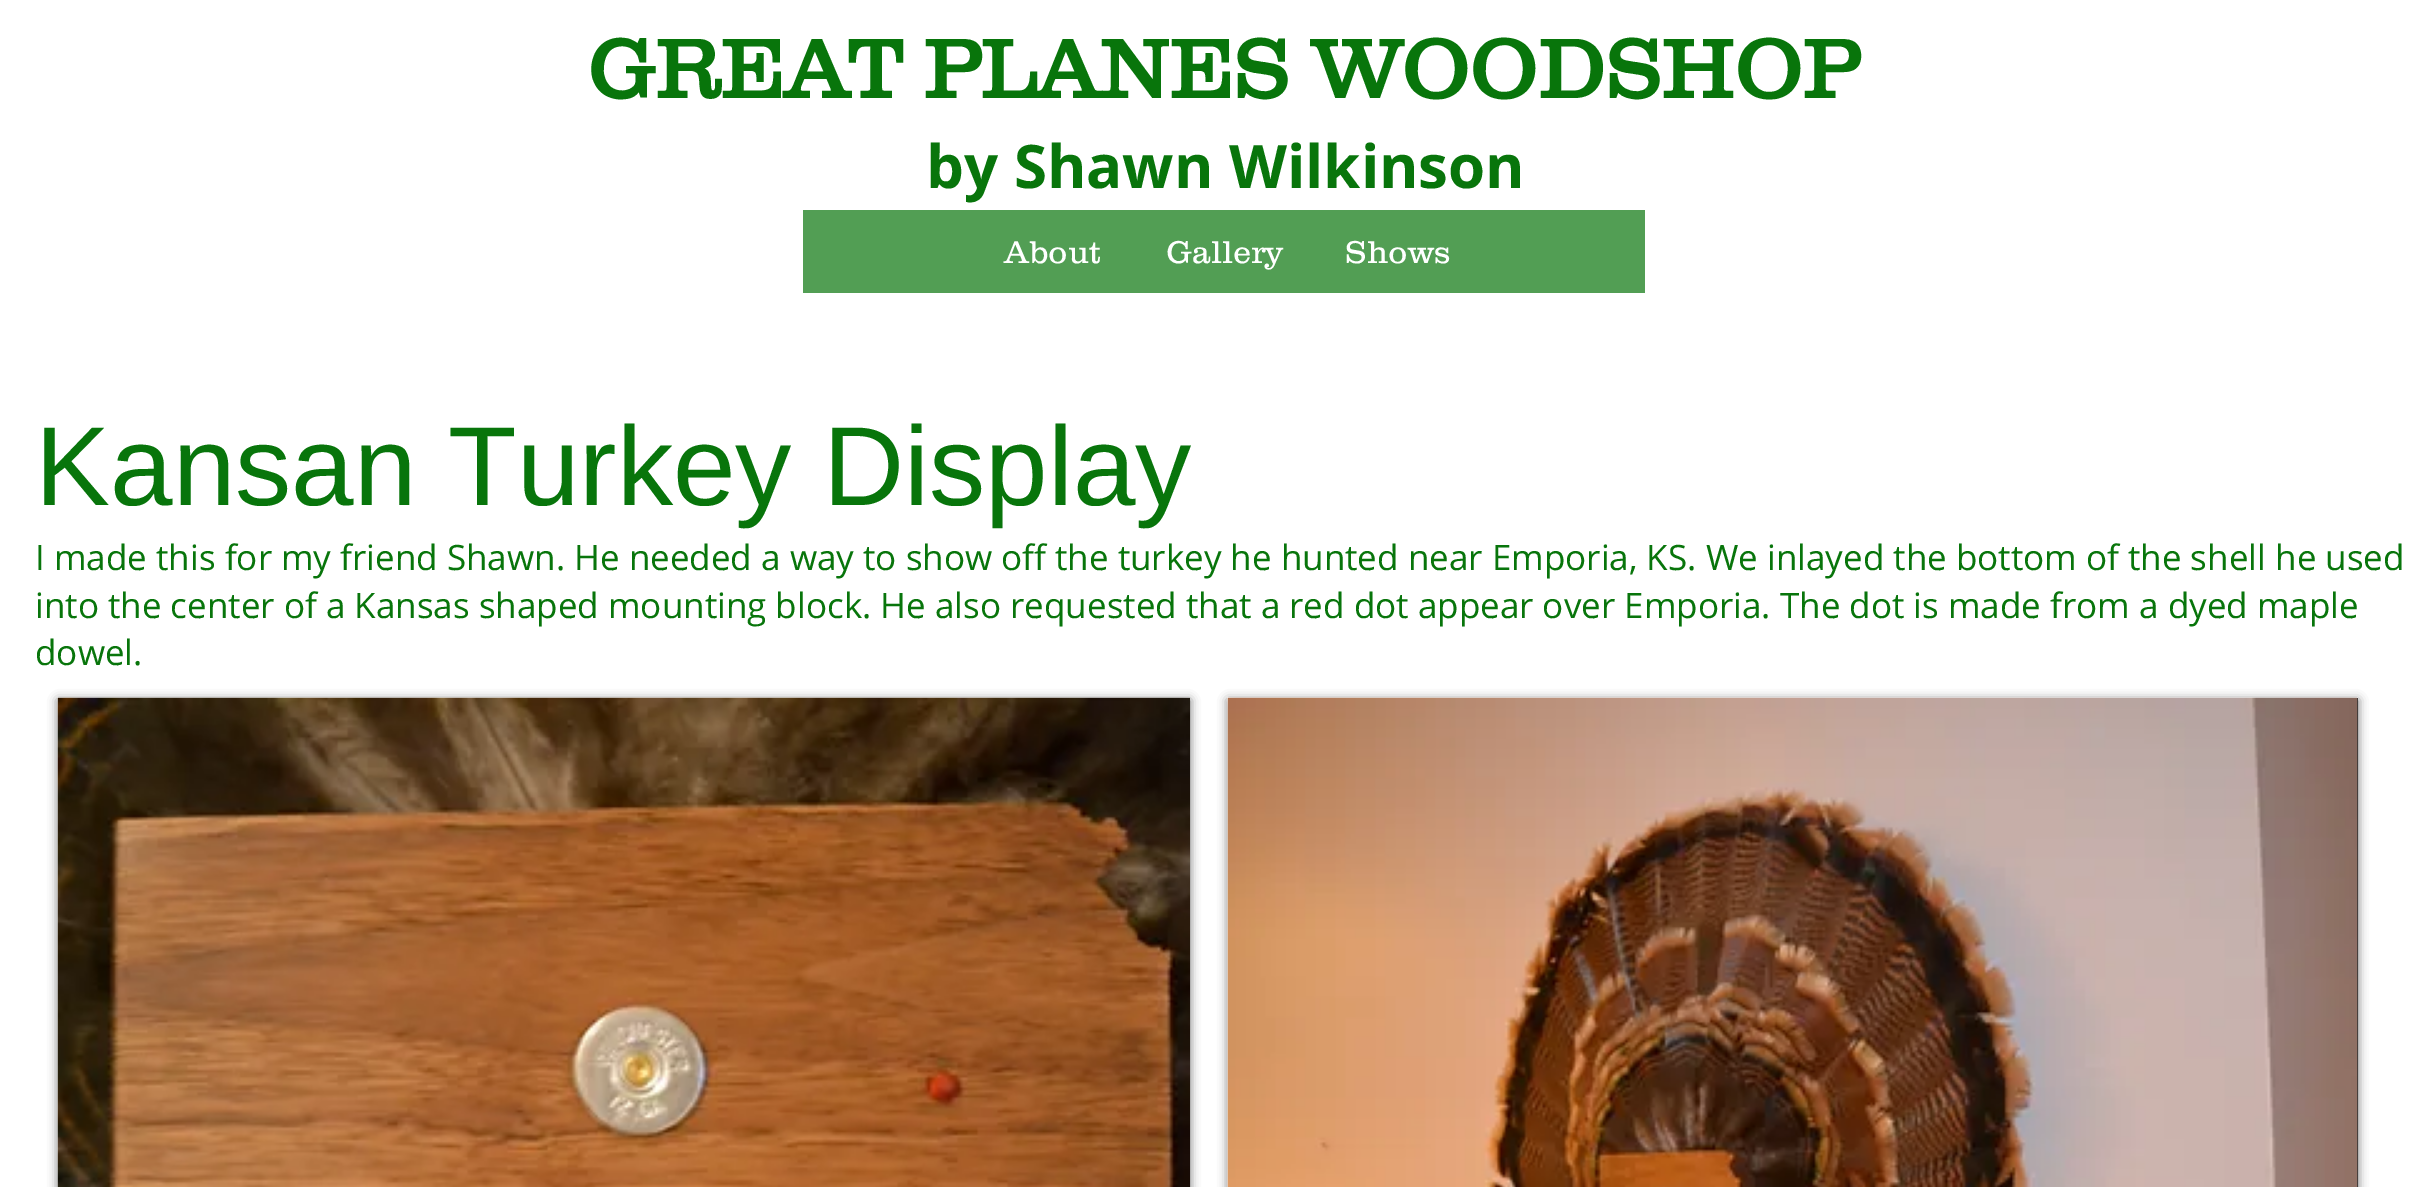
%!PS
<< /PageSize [2418 1187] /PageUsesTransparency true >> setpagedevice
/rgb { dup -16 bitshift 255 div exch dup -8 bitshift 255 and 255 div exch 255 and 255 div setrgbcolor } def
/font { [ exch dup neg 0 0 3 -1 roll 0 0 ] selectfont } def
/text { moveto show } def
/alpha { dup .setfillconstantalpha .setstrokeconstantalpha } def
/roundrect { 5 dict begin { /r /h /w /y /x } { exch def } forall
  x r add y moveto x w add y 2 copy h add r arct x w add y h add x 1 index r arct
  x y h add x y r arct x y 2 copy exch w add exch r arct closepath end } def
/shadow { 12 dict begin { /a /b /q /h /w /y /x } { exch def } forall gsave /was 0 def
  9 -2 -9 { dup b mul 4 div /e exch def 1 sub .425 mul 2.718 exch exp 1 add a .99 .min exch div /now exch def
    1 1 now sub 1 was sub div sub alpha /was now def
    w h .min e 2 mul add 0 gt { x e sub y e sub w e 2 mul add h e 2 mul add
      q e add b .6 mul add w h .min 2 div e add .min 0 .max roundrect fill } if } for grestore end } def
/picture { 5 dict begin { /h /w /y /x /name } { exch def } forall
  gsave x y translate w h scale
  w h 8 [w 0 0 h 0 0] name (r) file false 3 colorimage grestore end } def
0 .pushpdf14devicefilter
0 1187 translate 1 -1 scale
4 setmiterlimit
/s1 { /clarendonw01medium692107-Bold 85 font 16#08750B rgb } def
/s2 { /OpenSans-Bold 60 font 16#08750B rgb } def
/s3 { /clarendonw01medium692107-Light 32.5 font 16#FFFFFF rgb } def
/s4 { /LiberationSans-Regular 112.5 font 16#08750B rgb } def
/s5 { /OpenSans-Regular 35 font 16#08750B rgb } def
16#FFFFFF rgb
0 0 2418 1187 rectfill
s1
(GREAT PLANES WOODSHOP) 587 98 text
s2
(by Shawn Wilkinson) 926 188 text
16#529E54 rgb
803 210 842 83 rectfill
s3
(About) 1004 263 text
(Gallery) 1166 263 text
(Shows) 1345 263 text
s4
(Kansan Turkey Display) 35 505 text
s5
(I made this for my friend Shawn. He needed a way to show off the turkey he hunted near Emporia, KS. We inlayed the bottom of the shell he used) 35 570 text
(into the center of a Kansas shaped mounting block. He also requested that a red dot appear over Emporia. The dot is made from a dyed maple) 35 618 text
(dowel.) 35 665 text
16#000000 rgb
58 700 1132 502 0 5 0.6 shadow
(pic1.raw) 57 697 1133 490 picture
1228 700 1130 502 0 5 0.6 shadow
16#2E2E2E rgb
2357 698 1 489 rectfill
(pic2.raw) 1227 697 1131 490 picture
.poppdf14devicefilter showpage
